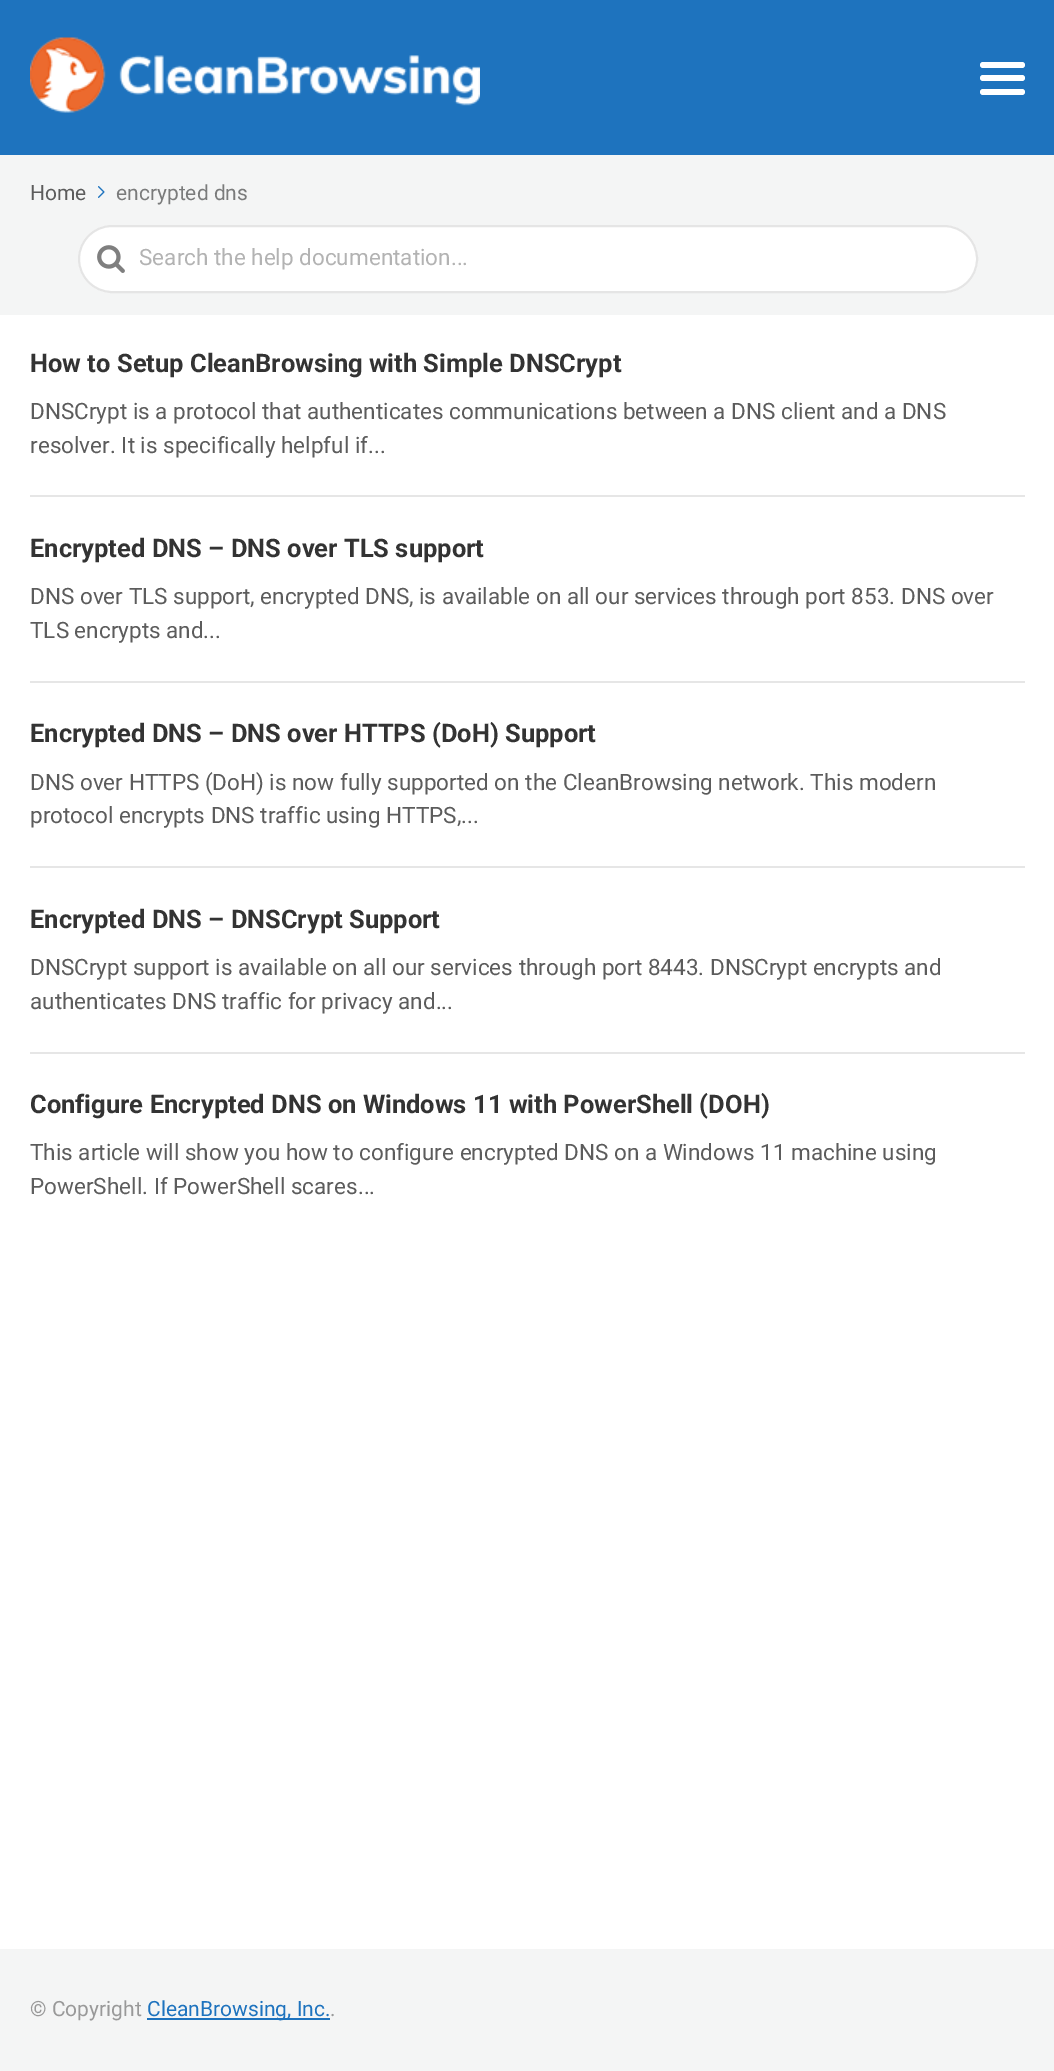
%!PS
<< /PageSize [1054 2071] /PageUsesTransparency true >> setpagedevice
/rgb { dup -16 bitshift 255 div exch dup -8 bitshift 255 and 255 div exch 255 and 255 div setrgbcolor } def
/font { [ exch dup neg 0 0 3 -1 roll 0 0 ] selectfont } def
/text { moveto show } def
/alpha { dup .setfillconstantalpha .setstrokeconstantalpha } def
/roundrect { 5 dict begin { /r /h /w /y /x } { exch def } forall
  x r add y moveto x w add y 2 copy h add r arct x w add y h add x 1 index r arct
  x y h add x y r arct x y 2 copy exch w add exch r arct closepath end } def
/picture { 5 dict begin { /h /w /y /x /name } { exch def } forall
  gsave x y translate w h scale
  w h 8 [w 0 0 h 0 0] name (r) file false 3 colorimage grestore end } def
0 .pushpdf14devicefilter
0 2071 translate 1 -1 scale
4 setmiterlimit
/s1 { /Roboto-Regular 21 font 16#5C5C5C rgb } def
/s2 { /Roboto-Regular 21 font 16#7A7B7B rgb } def
/s3 { /Roboto-Regular 22.5 font 16#B3B3B3 rgb } def
/s4 { /Roboto-Bold 25.5 font 16#333333 rgb } def
/s5 { /Roboto-Regular 22.5 font 16#5C5C5C rgb } def
/s6 { /Roboto-Regular 21 font 16#999999 rgb } def
/s7 { /Roboto-Regular 21 font 16#1E73BE rgb } def
16#FFFFFF rgb
0 0 1054 2071 rectfill
16#1E73BE rgb
0 0 1054 155 rectfill
(pic1.raw) 30 37 450 76 picture
16#FFFFFF rgb
980 75 45 6 3 roundrect fill
980 62 45 6 3 roundrect fill
980 89 45 6 3 roundrect fill
16#F4F5F5 rgb
0 155 1054 160 rectfill
s1
(Home) 30 200 text
(pic2.raw) 98 186 7 12 picture
s2
(encrypted dns) 116 200 text
16#FFFFFF rgb
78 225 900 68 34 roundrect fill
0.5 alpha
16#CCCCCC rgb
2 setlinewidth
79 226 898 66 33 roundrect stroke
1 alpha
(pic3.raw) 97 245 28 28 picture
s3
(Search the help documentation...) 139 265 text
16#E6E6E6 rgb
30 495 995 2 rectfill
s4
(How to Setup CleanBrowsing with Simple DNSCrypt) 30 372 text
s5
(DNSCrypt is a protocol that authenticates communications between a DNS client and a DNS) 30 419 text
(resolver. It is specifically helpful if...) 30 453 text
16#E6E6E6 rgb
30 681 995 2 rectfill
s4
(Encrypted DNS – DNS over TLS support) 30 557 text
s5
(DNS over TLS support, encrypted DNS, is available on all our services through port 853. DNS over) 30 604 text
(TLS encrypts and...) 30 638 text
16#E6E6E6 rgb
30 866 995 2 rectfill
s4
(Encrypted DNS – DNS over HTTPS \(DoH\) Support) 30 742 text
s5
(DNS over HTTPS \(DoH\) is now fully supported on the CleanBrowsing network. This modern) 30 790 text
(protocol encrypts DNS traffic using HTTPS,...) 30 823 text
16#E6E6E6 rgb
30 1052 995 2 rectfill
s4
(Encrypted DNS – DNSCrypt Support) 30 928 text
s5
(DNSCrypt support is available on all our services through port 8443. DNSCrypt encrypts and) 30 975 text
(authenticates DNS traffic for privacy and...) 30 1009 text
s4
(Configure Encrypted DNS on Windows 11 with PowerShell \(DOH\)) 30 1113 text
s5
(This article will show you how to configure encrypted DNS on a Windows 11 machine using) 30 1160 text
(PowerShell. If PowerShell scares...) 30 1194 text
16#F4F5F5 rgb
0 1949 1054 122 rectfill
s6
(© Copyright) 30 2016 text
16#1E73BE rgb
147 2018 183 2 rectfill
(CleanBrowsing, Inc.) 147 2016 text
s6
(.) 330 2016 text
.poppdf14devicefilter showpage
